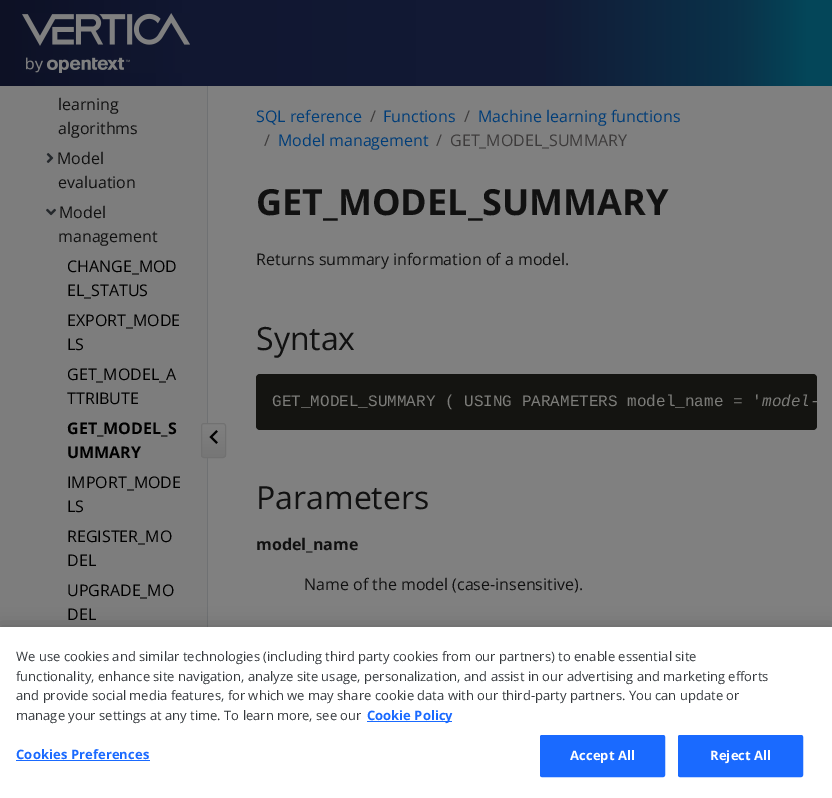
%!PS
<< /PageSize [832 798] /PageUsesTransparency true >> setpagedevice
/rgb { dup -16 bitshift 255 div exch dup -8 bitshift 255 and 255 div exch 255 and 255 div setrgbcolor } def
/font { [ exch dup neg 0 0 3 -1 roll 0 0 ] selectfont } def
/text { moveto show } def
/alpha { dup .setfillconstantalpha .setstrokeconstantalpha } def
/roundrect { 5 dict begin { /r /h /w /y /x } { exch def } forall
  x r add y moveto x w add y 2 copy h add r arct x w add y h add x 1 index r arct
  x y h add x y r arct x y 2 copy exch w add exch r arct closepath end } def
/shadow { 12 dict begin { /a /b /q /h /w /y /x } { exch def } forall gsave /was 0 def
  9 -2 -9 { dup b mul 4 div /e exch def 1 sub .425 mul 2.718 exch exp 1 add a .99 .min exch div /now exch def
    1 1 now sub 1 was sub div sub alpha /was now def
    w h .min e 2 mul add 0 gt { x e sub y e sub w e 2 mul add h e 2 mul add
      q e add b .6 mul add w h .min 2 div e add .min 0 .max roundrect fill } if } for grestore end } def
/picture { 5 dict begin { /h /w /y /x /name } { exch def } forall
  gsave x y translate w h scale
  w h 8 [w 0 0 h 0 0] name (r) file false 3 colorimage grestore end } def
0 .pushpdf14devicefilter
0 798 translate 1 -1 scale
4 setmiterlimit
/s1 { /OpenSans-Regular 16 font 16#111111 rgb } def
/s2 { /OpenSans-Regular 16 font 16#000000 rgb } def
/s3 { /OpenSans-Bold 16 font 16#000000 rgb } def
/s4 { /OpenSans-Regular 16 font 16#003D78 rgb } def
/s5 { /OpenSans-Regular 16 font 16#3D3B3B rgb } def
/s6 { /OpenSans-Bold 36 font 16#111111 rgb } def
/s7 { /OpenSans-Regular 32 font 16#111111 rgb } def
/s8 { /LiberationMono-Regular 16 font 16#7C7C79 rgb } def
/s9 { /LiberationMono-Italic 16 font 16#7C7C79 rgb } def
/s10 { /OpenSans-Bold 16 font 16#111111 rgb } def
/s11 { /OpenSans-Regular 13 font 16#35393D rgb } def
/s12 { /OpenSans-Bold 13 font 16#1A6AFF rgb } def
16#808080 rgb
0 0 832 798 rectfill
gsave 0 0 moveto 832 0 lineto 832 86 lineto 0 86 lineto closepath clip newpath
<< /ShadingType 2 /ColorSpace /DeviceRGB /Coords [0 43 832 43] /Extend [true true] /Function << /FunctionType 3 /Domain [0 1] /Functions [<< /FunctionType 2 /Domain [0 1] /C0 [0.051 0.067 0.145] /C1 [0.067 0.09 0.192] /N 1 >> << /FunctionType 2 /Domain [0 1] /C0 [0.067 0.09 0.192] /C1 [0.071 0.102 0.208] /N 1 >> << /FunctionType 2 /Domain [0 1] /C0 [0.071 0.102 0.208] /C1 [0.039 0.2 0.29] /N 1 >> << /FunctionType 2 /Domain [0 1] /C0 [0.039 0.2 0.29] /C1 [0.016 0.275 0.349] /N 1 >> << /FunctionType 2 /Domain [0 1] /C0 [0.016 0.275 0.349] /C1 [0.016 0.275 0.349] /N 1 >>] /Bounds [0.22 0.65 0.89 0.97] /Encode [0 1 0 1 0 1 0 1 0 1] >> >> shfill grestore
(pic1.raw) 22 13 168 60 picture
16#7D7D7D rgb
0 86 207 541 rectfill
16#6F7173 rgb
207 86 1 541 rectfill
gsave
201 423 25 35 3 roundrect clip newpath
gsave 201 424 moveto 226 424 lineto 226 457 lineto 201 457 lineto closepath clip newpath
<< /ShadingType 2 /ColorSpace /DeviceRGB /Coords [214 424 214 457] /Extend [true true] /Function << /FunctionType 2 /Domain [0 1] /C0 [0.502 0.502 0.502] /C1 [0.463 0.463 0.463] /N 1 >> >> shfill grestore
grestore
16#717171 rgb
201.5 423.5 24 34 2.5 roundrect stroke
(pic2.raw) 209 430 9 14 picture
s1
(learning) 58 110 text
(algorithms) 58 134 text
(pic3.raw) 46 153 8 10 picture
(Model) 57 164 text
(evaluation) 58 188 text
(pic4.raw) 46 208 10 8 picture
(Model) 59 218 text
(management) 58 242 text
s2
(CHANGE_MOD) 67 272 text
(EL_STATUS) 67 296 text
(EXPORT_MODE) 67 326 text
(LS) 67 350 text
(GET_MODEL_A) 67 380 text
(TTRIBUTE) 67 404 text
s3
(GET_MODEL_S) 67 434 text
(UMMARY) 67 458 text
s2
(IMPORT_MODE) 67 488 text
(LS) 67 512 text
(REGISTER_MO) 67 542 text
(DEL) 67 566 text
(UPGRADE_MO) 67 596 text
(DEL) 67 620 text
s4
(SQL reference) 256 122 text
s5
(/) 370 122 text
s4
(Functions) 383 122 text
s5
(/) 464 122 text
s4
(Machine learning functions) 478 122 text
s5
(/) 264 146 text
s4
(Model management) 278 146 text
s5
(/) 436 146 text
(GET_MODEL_SUMMARY) 450 146 text
s6
(GET_MODEL_SUMMARY) 256 215 text
s1
(Returns summary information of a model.) 256 265 text
s7
(Syntax) 256 350 text
16#141411 rgb
256 374 561 56 4 roundrect fill
s8
(GET_MODEL_SUMMARY \( USING PARAMETERS model_name = ') 272 406 text
s9
(model-) 762 406 text
s7
(Parameters) 256 509 text
s10
(model_name) 256 550 text
s1
(Name of the model \(case-insensitive\).) 304 590 text
16#000000 rgb
0 627 832 171 0 9 0.2 shadow
16#FFFFFF rgb
0 627 832 171 rectfill
s11
(We use cookies and similar technologies \(including third party cookies from our partners\) to enable essential site) 16 661 text
(functionality, enhance site navigation, analyze site usage, personalization, and assist in our advertising and marketing efforts) 16 681 text
(and provide social media features, for which we may share cookie data with our third-party partners. You can update or) 16 700 text
(manage your settings at any time. To learn more, see our) 16 720 text
16#1A6AFF rgb
367 721 85 1 rectfill
s12
(Cookie Policy) 367 720 text
16 759 moveto 0.1 0 (Cookies Preferences) ashow
16 760 134 1 rectfill
540.5 735.5 124 41 1.5 roundrect gsave fill grestore
stroke
16#FFFFFF rgb
570 760 moveto 0.1 0 (Accept All) ashow
16#1A6AFF rgb
678.5 735.5 124 41 1.5 roundrect gsave fill grestore
stroke
16#FFFFFF rgb
710 760 moveto 0.1 0 (Reject All) ashow
.poppdf14devicefilter showpage
